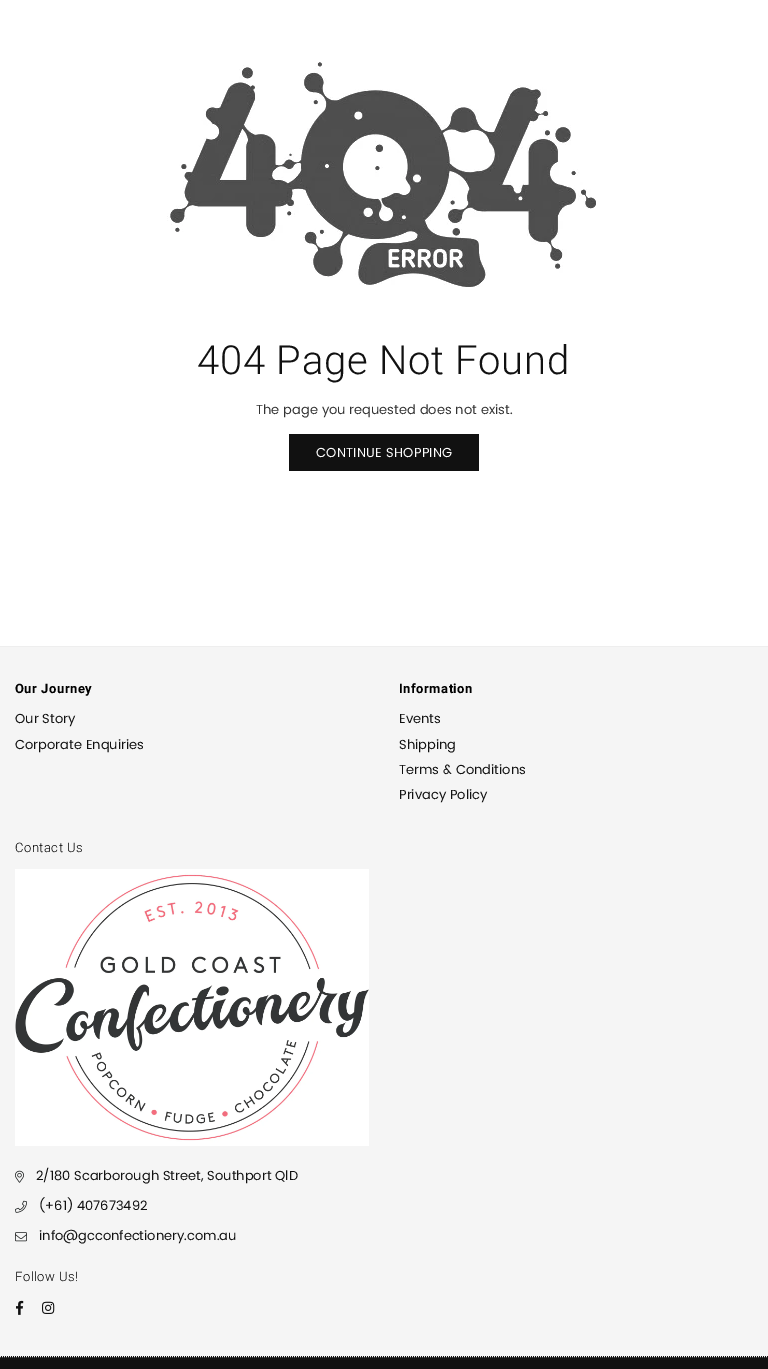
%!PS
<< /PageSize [768 1369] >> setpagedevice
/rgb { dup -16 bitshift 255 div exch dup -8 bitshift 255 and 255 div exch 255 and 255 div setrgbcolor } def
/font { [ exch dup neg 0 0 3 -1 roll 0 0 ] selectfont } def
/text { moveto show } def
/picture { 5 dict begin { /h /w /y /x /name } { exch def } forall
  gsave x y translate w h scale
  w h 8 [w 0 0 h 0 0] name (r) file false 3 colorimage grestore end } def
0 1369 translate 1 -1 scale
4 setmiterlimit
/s1 { /Poppins-Regular 13 font 16#333333 rgb } def
/s2 { /Poppins-Regular 13 font 16#111111 rgb } def
16#FFFFFF rgb
0 0 768 1369 rectfill
(pic1.raw) 167 62 429 225 picture
/Roboto-Light 40 font
16#111111 rgb
197 374 moveto 0.75 0 (404 Page Not Found) ashow
s1
(The page you requested does not exist.) 256 414 text
16#111111 rgb
289 434 190 37 rectfill
16#FFFFFF rgb
316 457 moveto 0.25 0 (CONTINUE SHOPPING) ashow
16#F5F5F5 rgb
0 647 768 709 rectfill
16#EEEEEE rgb
0 646 768 1 rectfill
/Roboto-Bold 13 font
16#000000 rgb
15 693 moveto 0.5 0 (Our Journey) ashow
s2
(Our Story) 15 723 text
(Corporate Enquiries) 15 749 text
/Roboto-Bold 13 font
16#000000 rgb
399 693 moveto 0.5 0 (Information) ashow
s2
(Events) 399 723 text
(Shipping) 399 749 text
(Terms & Conditions) 399 774 text
(Privacy Policy) 399 799 text
/Roboto-Light 13 font
16#000000 rgb
15 852 moveto 0.5 0 (Contact Us) ashow
(pic2.raw) 15 869 354 277 picture
(pic3.raw) 15 1170 9 13 picture
s2
(2/180 Scarborough Street, Southport QlD) 36 1180 text
(pic4.raw) 15 1200 12 13 picture
(\(+61\) 407673492) 39 1210 text
(pic5.raw) 15 1232 12 10 picture
(info@gcconfectionery.com.au) 39 1240 text
/Roboto-Light 13 font
16#000000 rgb
15 1281 moveto 0.5 0 (Follow Us!) ashow
(pic6.raw) 16 1300 8 15 picture
(pic7.raw) 42 1301 13 13 picture
16#111111 rgb
0 1356 768 13 rectfill
16#EEEEEE rgb
[1 1] 0 setdash
0 1356.5 moveto 768 1356.5 lineto stroke
showpage
